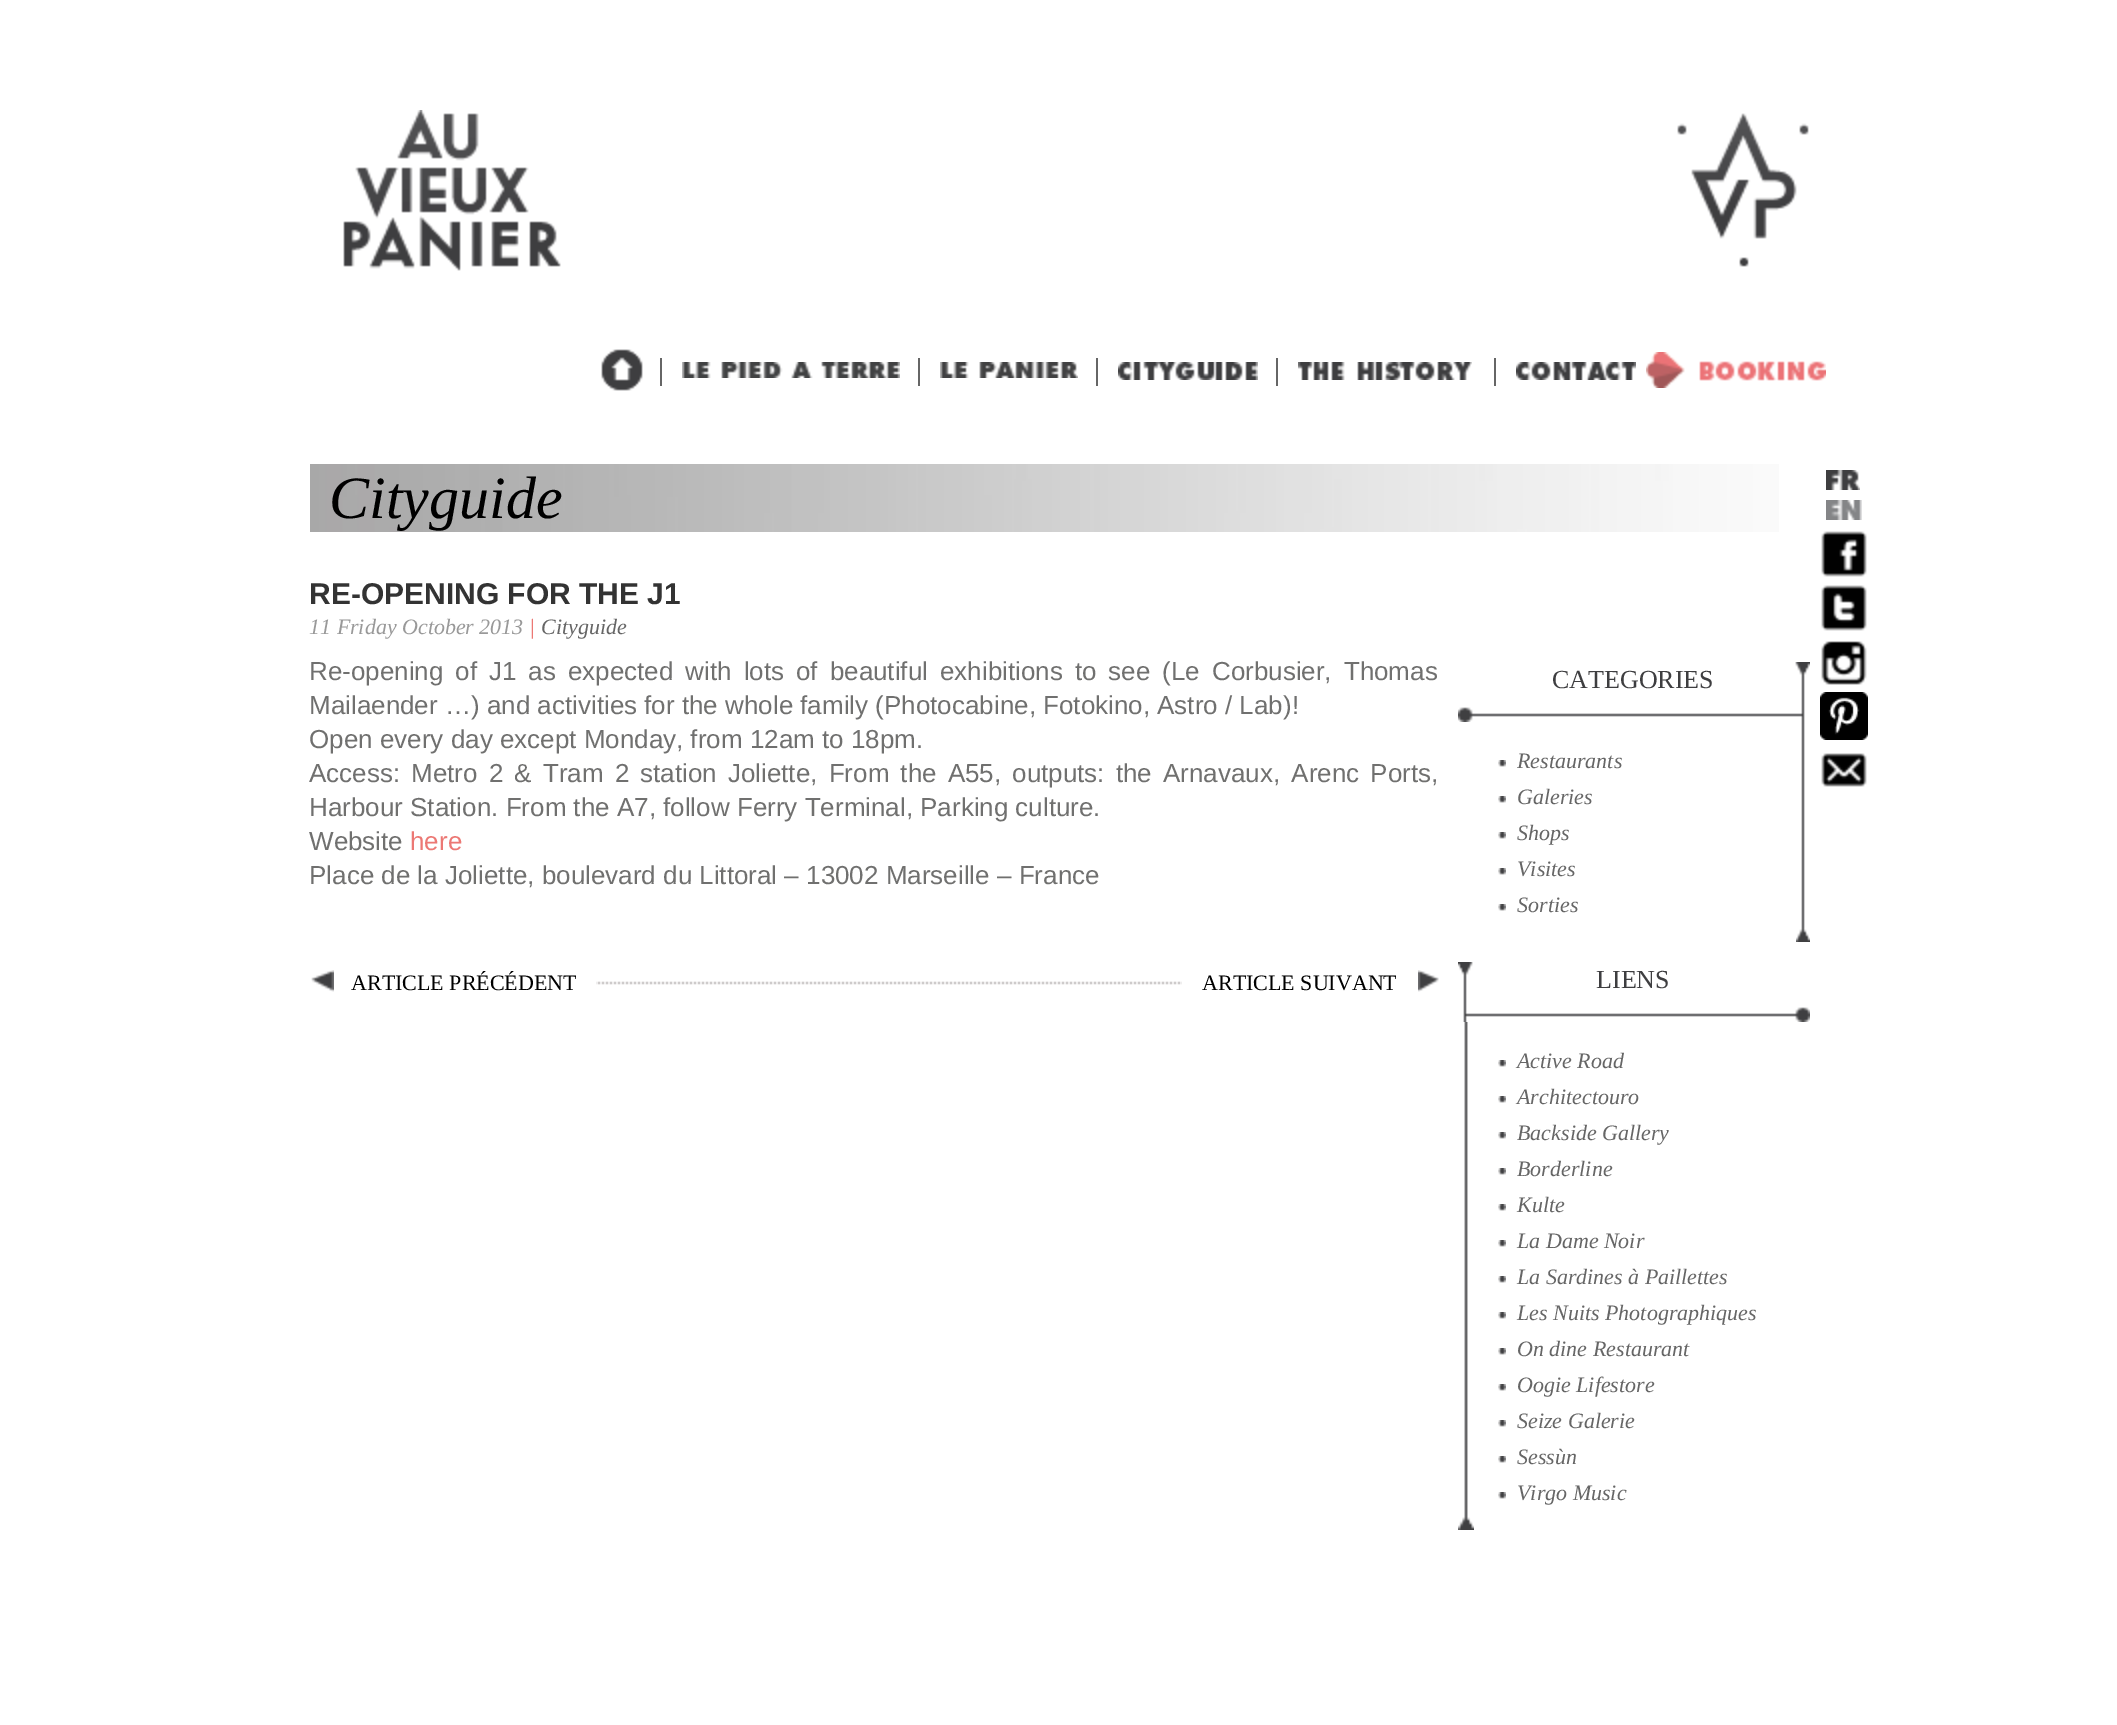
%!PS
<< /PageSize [2117 1725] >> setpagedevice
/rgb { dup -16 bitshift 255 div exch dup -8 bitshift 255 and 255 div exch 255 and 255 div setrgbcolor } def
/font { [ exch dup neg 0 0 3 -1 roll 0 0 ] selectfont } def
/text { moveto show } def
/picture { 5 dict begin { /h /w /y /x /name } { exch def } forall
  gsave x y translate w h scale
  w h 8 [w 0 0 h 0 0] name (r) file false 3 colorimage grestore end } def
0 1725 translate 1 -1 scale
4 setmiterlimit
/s1 { /LiberationSerif-Italic 60 font 16#000000 rgb } def
/s2 { /LiberationSans-Bold 30 font 16#333333 rgb } def
/s3 { /LiberationSerif-Italic 22 font 16#999999 rgb } def
/s4 { /LiberationSerif-Italic 22 font 16#EC7874 rgb } def
/s5 { /LiberationSerif-Italic 22 font 16#666666 rgb } def
/s6 { /LiberationSans-Regular 26 font 16#70706F rgb } def
/s7 { /LiberationSans-Regular 26 font 16#EC7874 rgb } def
/s8 { /LiberationSerif-Regular 22 font 16#000000 rgb } def
/s9 { /LiberationSerif-Regular 26 font 16#3E3E40 rgb } def
16#FFFFFF rgb
0 0 2117 1725 rectfill
(pic1.raw) 343 110 1466 281 picture
16#666666 rgb
660 358 2 28 rectfill
(pic2.raw) 682 362 218 16 picture
918 358 2 28 rectfill
(pic3.raw) 940 362 138 16 picture
1096 358 2 28 rectfill
(pic4.raw) 1118 362 140 18 picture
1276 358 2 28 rectfill
(pic5.raw) 1298 362 174 18 picture
1494 358 2 28 rectfill
(pic6.raw) 1516 362 120 18 picture
(pic7.raw) 1646 352 180 36 picture
(pic8.raw) 1826 470 34 20 picture
(pic9.raw) 1826 500 36 20 picture
(pic10.raw) 1821 531 46 46 picture
(pic11.raw) 1821 585 46 46 picture
(pic12.raw) 1821 641 46 44 picture
(pic13.raw) 1820 692 48 48 picture
(pic14.raw) 1821 753 46 34 picture
(pic15.raw) 310 464 1469 68 picture
s1
(Cityguide) 329 518 text
s2
(RE-OPENING FOR THE J1) 309 604 text
s3
(11 Friday October 2013) 309 634 text
s4
(|) 529 634 text
s5
(Cityguide) 541 634 text
/LiberationSans-Regular 26 font
16#70706F rgb
309 680 moveto 4.75 0 32 (Re-opening of J1 as expected with lots of beautiful exhibitions to see \(Le Corbusier, Thomas) widthshow
(Mailaender …\) and activities for the whole family \(Photocabine, Fotokino, Astro / Lab\)!) 309 714 text
(Open every day except Monday, from 12am to 18pm.) 309 748 text
309 782 moveto 3.9 0 32 (Access: Metro 2 & Tram 2 station Joliette, From the A55, outputs: the Arnavaux, Arenc Ports,) widthshow
(Harbour Station. From the A7, follow Ferry Terminal, Parking culture.) 309 816 text
(Website) 309 850 text
s7
(here) 410 850 text
s6
(Place de la Joliette, boulevard du Littoral – 13002 Marseille – France) 309 884 text
(pic16.raw) 596 981 586 4 picture
(pic17.raw) 311 970 23 22 picture
s8
(ARTICLE PRÉCÉDENT) 351 990 text
(pic18.raw) 1418 970 21 22 picture
(ARTICLE SUIVANT) 1202 990 text
(pic19.raw) 1458 662 352 60 picture
s9
(CATEGORIES) 1552 688 text
(pic20.raw) 1796 722 14 220 picture
(pic21.raw) 1498 760 8 7 picture
s5
(Restaurants) 1517 768 text
(pic21.raw) 1498 796 8 7 picture
(Galeries) 1517 804 text
(pic21.raw) 1498 832 8 7 picture
(Shops) 1517 840 text
(pic21.raw) 1498 868 8 7 picture
(Visites) 1517 876 text
(pic21.raw) 1498 904 8 7 picture
(Sorties) 1517 912 text
(pic22.raw) 1458 962 352 60 picture
s9
(LIENS) 1596 988 text
(pic23.raw) 1458 1022 16 508 picture
(pic21.raw) 1498 1060 8 7 picture
s5
(Active Road) 1517 1068 text
(pic21.raw) 1498 1096 8 7 picture
(Architectouro) 1517 1104 text
(pic21.raw) 1498 1132 8 7 picture
(Backside Gallery) 1517 1140 text
(pic21.raw) 1498 1168 8 7 picture
(Borderline) 1517 1176 text
(pic21.raw) 1498 1204 8 7 picture
(Kulte) 1517 1212 text
(pic21.raw) 1498 1240 8 7 picture
(La Dame Noir) 1517 1248 text
(pic21.raw) 1498 1276 8 7 picture
(La Sardines à Paillettes) 1517 1284 text
(pic21.raw) 1498 1312 8 7 picture
(Les Nuits Photographiques) 1517 1320 text
(pic21.raw) 1498 1348 8 7 picture
(On dine Restaurant) 1517 1356 text
(pic21.raw) 1498 1384 8 7 picture
(Oogie Lifestore) 1517 1392 text
(pic21.raw) 1498 1420 8 7 picture
(Seize Galerie) 1517 1428 text
(pic21.raw) 1498 1456 8 7 picture
(Sessùn) 1517 1464 text
(pic21.raw) 1498 1492 8 7 picture
(Virgo Music) 1517 1500 text
showpage
